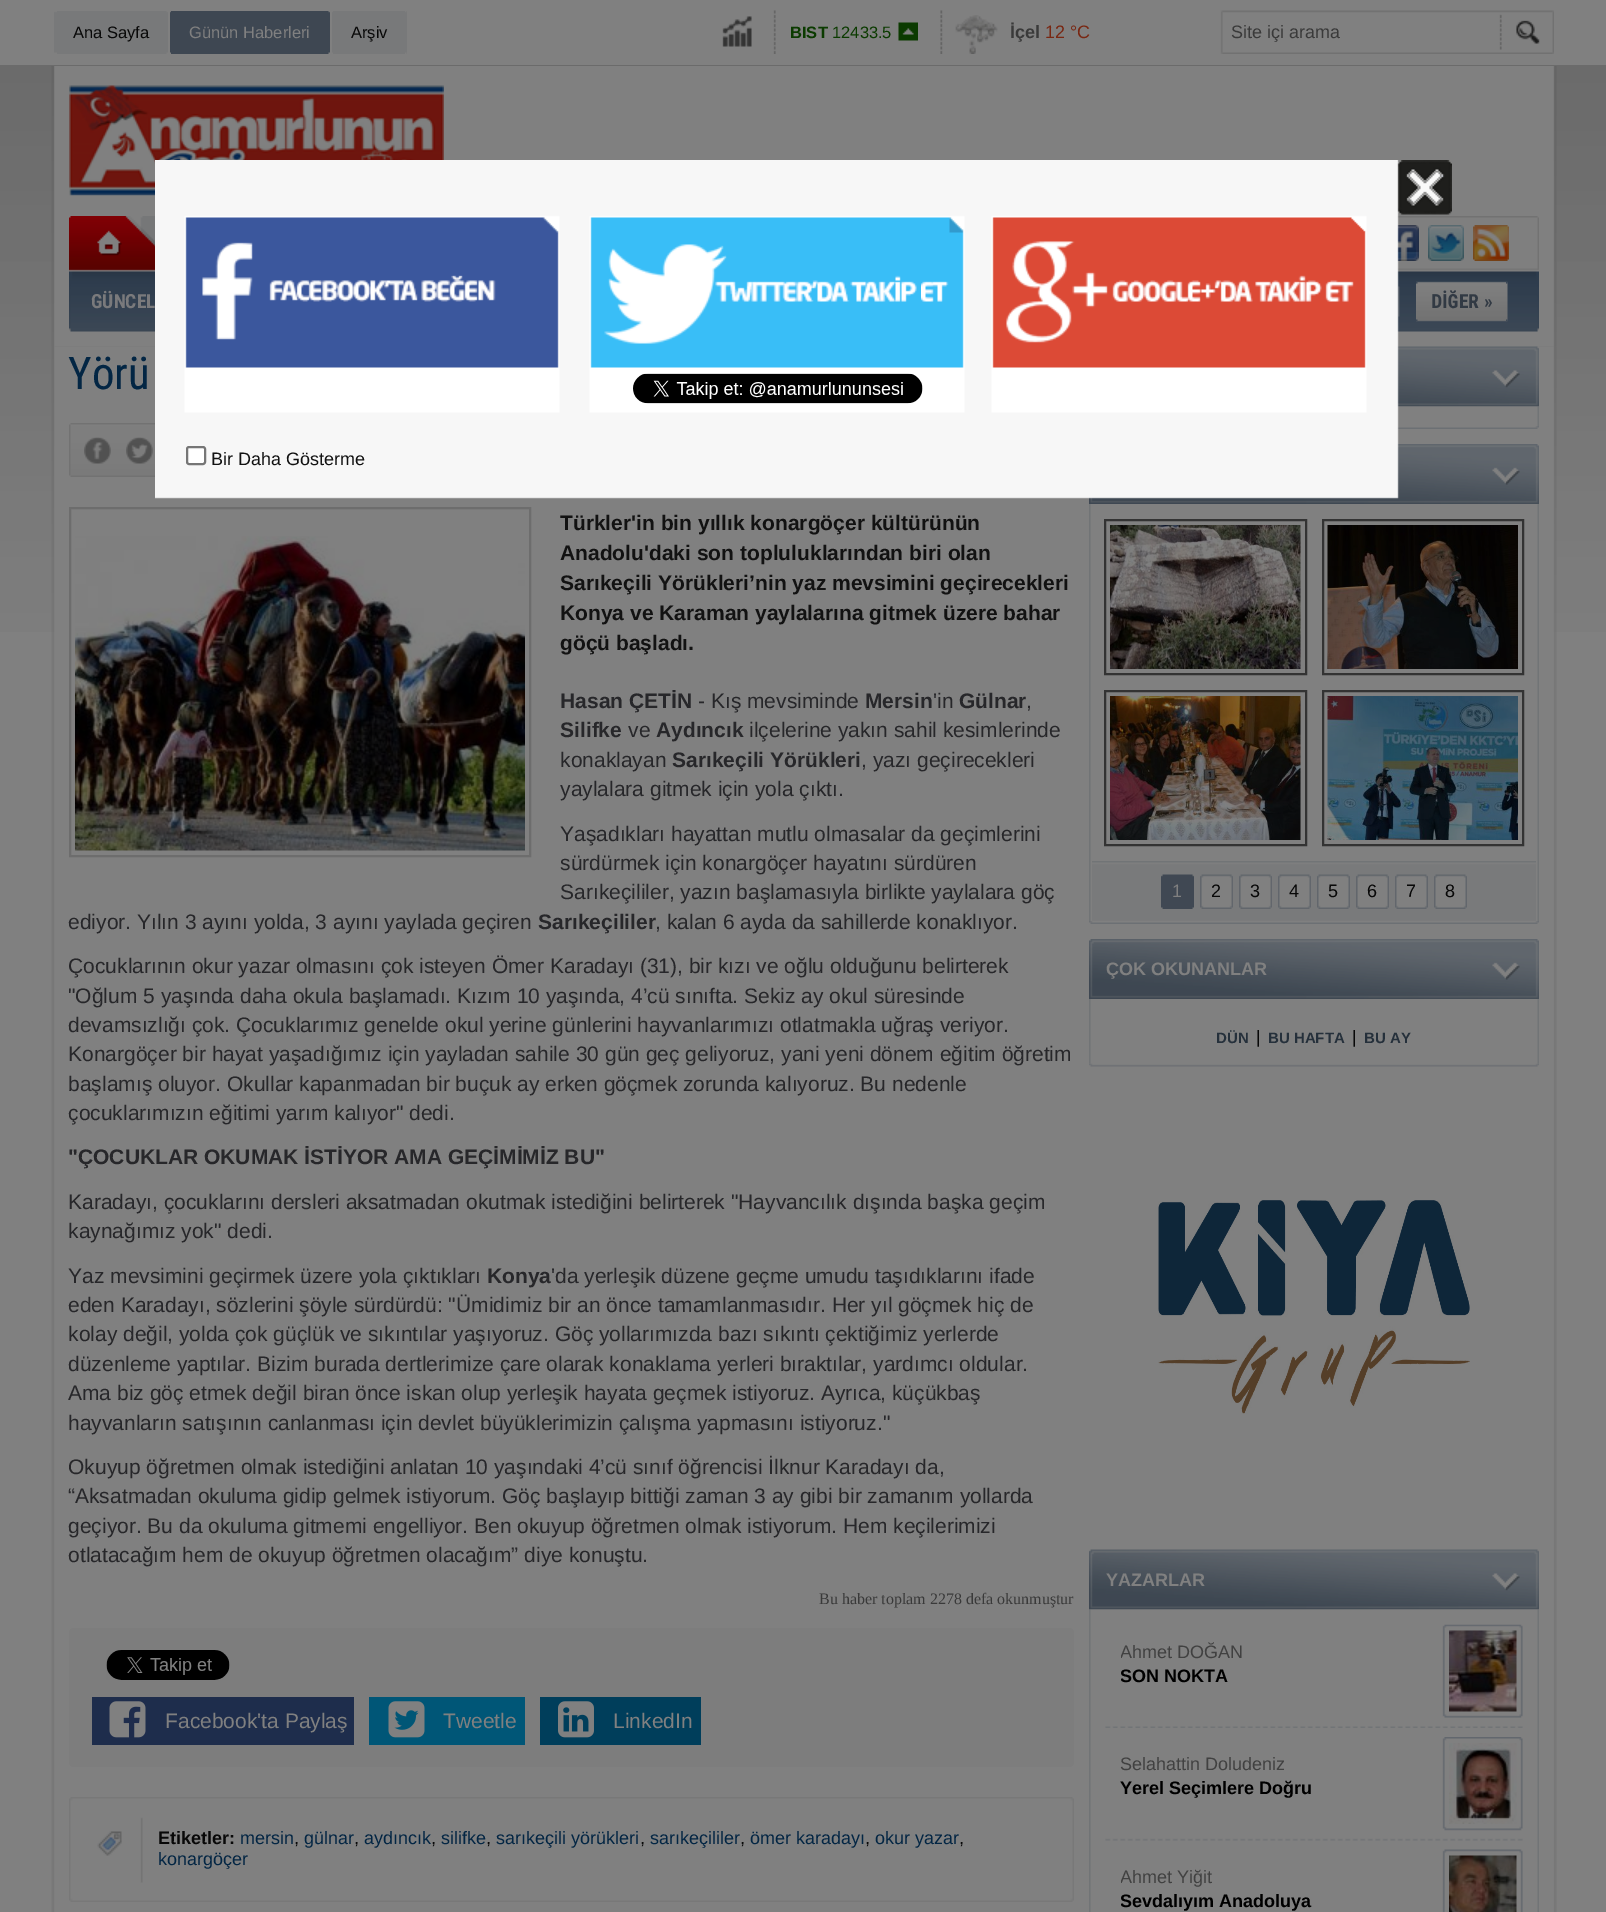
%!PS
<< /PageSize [1606 1912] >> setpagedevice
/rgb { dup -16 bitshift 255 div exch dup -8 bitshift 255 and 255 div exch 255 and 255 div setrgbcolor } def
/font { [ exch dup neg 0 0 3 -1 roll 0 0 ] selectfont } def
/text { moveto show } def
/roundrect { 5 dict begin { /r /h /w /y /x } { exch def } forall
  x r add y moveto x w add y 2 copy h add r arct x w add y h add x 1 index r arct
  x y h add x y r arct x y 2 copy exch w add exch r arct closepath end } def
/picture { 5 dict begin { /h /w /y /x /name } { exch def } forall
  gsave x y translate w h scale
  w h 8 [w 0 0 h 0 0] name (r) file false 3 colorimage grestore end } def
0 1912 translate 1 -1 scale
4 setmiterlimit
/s1 { /LiberationSans-Regular 16.5 font 16#080808 rgb } def
/s2 { /LiberationSans-Regular 16.5 font 16#808080 rgb } def
/s3 { /LiberationSans-Bold 16.5 font 16#0B3B00 rgb } def
/s4 { /LiberationSans-Regular 16.5 font 16#0B3B00 rgb } def
/s5 { /LiberationSans-Bold 18 font 16#3A3A3A rgb } def
/s6 { /LiberationSans-Regular 18 font 16#792712 rgb } def
/s7 { /LiberationSans-Regular 18 font 16#3A3A3A rgb } def
/s8 { /RobotoCondensed-Bold 19.5 font 16#7A7A7C rgb } def
/s9 { /RobotoCondensed-Bold 19.5 font 16#323A44 rgb } def
/s10 { /RobotoCondensed-Regular 45 font 16#032644 rgb } def
/s11 { /LiberationSans-Bold 21 font 16#121212 rgb } def
/s12 { /LiberationSans-Bold 21 font 16#27272A rgb } def
/s13 { /LiberationSans-Regular 21 font 16#27272A rgb } def
/s14 { /LiberationSerif-Regular 16 font 16#3A3A3A rgb } def
/s15 { /LiberationSans-Regular 21 font 16#808080 rgb } def
/s16 { /LiberationSans-Bold 18 font 16#080808 rgb } def
/s17 { /LiberationSans-Regular 18 font 16#032644 rgb } def
/s18 { /LiberationSans-Regular 18 font 16#080808 rgb } def
/s19 { /LiberationSans-Regular 18 font 16#808080 rgb } def
/s20 { /LiberationSans-Bold 18 font 16#808080 rgb } def
/s21 { /LiberationSans-Bold 15 font 16#25303B rgb } def
/s22 { /LiberationSans-Regular 18 font 16#414141 rgb } def
/s23 { /LiberationSans-Bold 18 font 16#000000 rgb } def
/s24 { /LiberationSans-Regular 18 font 16#121212 rgb } def
16#808080 rgb
0 0 1606 1912 rectfill
(pic1.raw) 0 67 1606 565 picture
16#6B6B6B rgb
0 65 1606 2 rectfill
(pic2.raw) 722 10 832 44 picture
16#78797A rgb
54 11 114 43 rectfill
(pic3.raw) 54 11 3 43 picture
(pic4.raw) 166 11 2 43 picture
s1
(Ana Sayfa) 73 38 text
16#3E4752 rgb
170 11 160 43 rectfill
(pic5.raw) 170 11 1 43 picture
(pic6.raw) 328 11 2 43 picture
s2
(Günün Haberleri) 189 38 text
16#78797A rgb
332 11 75 43 rectfill
(pic7.raw) 332 11 1 43 picture
(pic8.raw) 405 11 2 43 picture
s1
(Arşiv) 351 38 text
(pic9.raw) 898 22 20 19 picture
gsave
791 11 135 43 rectclip
s3
(BIST) 790 38 text
grestore
s4
(12433.5) 832 38 text
(pic10.raw) 955 15 43 39 picture
s5
(İçel) 1010 38 text
s6
(12 °C) 1045 38 text
s7
(Site içi arama) 1231 38 text
(pic11.raw) 51 66 1506 281 picture
(pic12.raw) 69 216 1470 116 picture
(pic13.raw) 69 85 375 111 picture
(pic14.raw) 1397 225 22 36 picture
(pic15.raw) 1428 225 36 36 picture
(pic16.raw) 1473 225 36 36 picture
s8
(GÜNCEL) 91 308 text
(pic17.raw) 1398 286 2 31 picture
(pic18.raw) 1416 281 92 41 picture
(pic19.raw) 1416 282 2 39 picture
(pic20.raw) 1506 282 2 39 picture
s9
(DİĞER ») 1431 308 text
(pic21.raw) 51 346 1506 1566 picture
s10
(Yörü) 68 389 text
(pic22.raw) 69 423 86 54 picture
(pic23.raw) 84 437 27 27 picture
(pic24.raw) 126 437 27 27 picture
16#6D6D6D rgb
2 setlinewidth
70 508 460 348 rectstroke
(pic25.raw) 75 536 450 315 picture
s11
(Türkler'in bin yıllık konargöçer kültürünün) 560 530 text
(Anadolu'daki son topluluklarından biri olan) 560 560 text
(Sarıkeçili Yörükleri’nin yaz mevsimini geçirecekleri) 560 590 text
(Konya ve Karaman yaylalarına gitmek üzere bahar) 560 620 text
(göçü başladı.) 560 650 text
s12
(Hasan ÇETİN) 560 708 text
s13
(- Kış mevsiminde) 698 708 text
s12
(Mersin) 865 708 text
s13
('in) 933 708 text
s12
(Gülnar) 959 708 text
s13
(,) 1026 708 text
s12
(Silifke) 560 737 text
s13
(ve) 628 737 text
s12
(Aydıncık) 656 737 text
s13
(ilçelerine yakın sahil kesimlerinde) 749 737 text
(konaklayan) 560 767 text
s12
(Sarıkeçili Yörükleri) 672 767 text
s13
(, yazı geçirecekleri) 861 767 text
(yaylalara gitmek için yola çıktı.) 560 796 text
(Yaşadıkları hayattan mutlu olmasalar da geçimlerini) 560 841 text
(sürdürmek için konargöçer hayatını sürdüren) 560 870 text
(Sarıkeçililer, yazın başlamasıyla birlikte yaylalara göç) 560 899 text
(ediyor. Yılın 3 ayını yolda, 3 ayını yaylada geçiren) 68 929 text
s12
(Sarıkeçililer) 538 929 text
s13
(, kalan 6 ayda da sahillerde konaklıyor.) 655 929 text
(Çocuklarının okur yazar olmasını çok isteyen Ömer Karadayı \(31\), bir kızı ve oğlu olduğunu belirterek) 68 973 text
("Oğlum 5 yaşında daha okula başlamadı. Kızım 10 yaşında, 4’cü sınıfta. Sekiz ay okul süresinde) 68 1003 text
(devamsızlığı çok. Çocuklarımız genelde okul yerine günlerini hayvanlarımızı otlatmakla uğraş veriyor.) 68 1032 text
(Konargöçer bir hayat yaşadığımız için yayladan sahile 30 gün geç geliyoruz, yani yeni dönem eğitim öğretim) 68 1061 text
(başlamış oluyor. Okullar kapanmadan bir buçuk ay erken göçmek zorunda kalıyoruz. Bu nedenle) 68 1091 text
(çocuklarımızın eğitimi yarım kalıyor" dedi.) 68 1120 text
s12
("ÇOCUKLAR OKUMAK İSTİYOR AMA GEÇİMİMİZ BU") 68 1164 text
s13
(Karadayı, çocuklarını dersleri aksatmadan okutmak istediğini belirterek "Hayvancılık dışında başka geçim) 68 1209 text
(kaynağımız yok" dedi.) 68 1238 text
(Yaz mevsimini geçirmek üzere yola çıktıkları) 68 1283 text
s12
(Konya) 487 1283 text
s13
('da yerleşik düzene geçme umudu taşıdıklarını ifade) 551 1283 text
(eden Karadayı, sözlerini şöyle sürdürdü: "Ümidimiz bir an önce tamamlanmasıdır. Her yıl göçmek hiç de) 68 1312 text
(kolay değil, yolda çok güçlük ve sıkıntılar yaşıyoruz. Göç yollarımızda bazı sıkıntı çektiğimiz yerlerde) 68 1341 text
(düzenleme yaptılar. Bizim burada dertlerimize çare olarak konaklama yerleri bıraktılar, yardımcı oldular.) 68 1371 text
(Ama biz göç etmek değil biran önce iskan olup yerleşik hayata geçmek istiyoruz. Ayrıca, küçükbaş) 68 1400 text
(hayvanların satışının canlanması için devlet büyüklerimizin çalışma yapmasını istiyoruz.") 68 1430 text
(Okuyup öğretmen olmak istediğini anlatan 10 yaşındaki 4’cü sınıf öğrencisi İlknur Karadayı da,) 68 1474 text
(“Aksatmadan okuluma gidip gelmek istiyorum. Göç başlayıp bittiği zaman 3 ay gibi bir zamanım yollarda) 68 1503 text
(geçiyor. Bu da okuluma gitmemi engelliyor. Ben okuyup öğretmen olmak istiyorum. Hem keçilerimizi) 68 1533 text
(otlatacağım hem de okuyup öğretmen olacağım” diye konuştu.) 68 1562 text
s14
(Bu haber toplam 2278 defa okunmuştur) 819 1604 text
16#7D7D7D rgb
69 1628 1005 139 5 roundrect fill
(pic26.raw) 106 1650 124 30 picture
16#1E2D4C rgb
92 1697 262 48 rectfill
(pic27.raw) 109 1701 37 37 picture
s15
(Facebook'ta Paylaş) 165 1728 text
16#005677 rgb
369 1697 156 48 rectfill
(pic28.raw) 388 1701 37 37 picture
s15
(Tweetle) 443 1728 text
16#003E5B rgb
540 1697 161 48 rectfill
(pic29.raw) 558 1701 36 37 picture
s15
(LinkedIn) 613 1728 text
(pic30.raw) 69 1797 1005 105 picture
s16
(Etiketler:) 158 1844 text
s17
(mersin) 240 1844 text
s18
(,) 294 1844 text
s17
(gülnar) 304 1844 text
s18
(,) 354 1844 text
s17
(aydıncık) 364 1844 text
s18
(,) 431 1844 text
s17
(silifke) 441 1844 text
s18
(,) 486 1844 text
s17
(sarıkeçili yörükleri) 496 1844 text
s18
(,) 640 1844 text
s17
(sarıkeçililer) 650 1844 text
s18
(,) 740 1844 text
s17
(ömer karadayı) 750 1844 text
s18
(,) 865 1844 text
s17
(okur yazar) 875 1844 text
s18
(,) 959 1844 text
s17
(konargöçer) 158 1865 text
(pic31.raw) 1397 346 142 61 picture
(pic32.raw) 1397 406 142 20 picture
(pic33.raw) 1397 426 142 3 picture
(pic34.raw) 1089 444 450 60 picture
(pic35.raw) 1089 504 450 417 picture
16#333333 rgb
1105 520 201 154 rectstroke
(pic36.raw) 1110 525 191 144 picture
1323 520 200 154 rectstroke
(pic37.raw) 1327 525 191 144 picture
1105 691 201 154 rectstroke
(pic38.raw) 1110 696 191 144 picture
1323 691 200 154 rectstroke
(pic39.raw) 1327 696 191 144 picture
(pic40.raw) 1092 861 444 60 picture
(pic41.raw) 1161 874 33 35 picture
s19
(1) 1172 897 text
(pic42.raw) 1200 874 33 35 picture
s18
(2) 1211 897 text
(pic42.raw) 1239 874 33 35 picture
(3) 1250 897 text
(pic43.raw) 1278 874 33 35 picture
(4) 1289 897 text
(pic43.raw) 1317 874 33 35 picture
(5) 1328 897 text
(pic42.raw) 1356 874 33 35 picture
(6) 1367 897 text
(pic43.raw) 1395 874 33 35 picture
(7) 1406 897 text
(pic43.raw) 1434 874 33 35 picture
(8) 1445 897 text
(pic44.raw) 1089 921 450 3 picture
(pic34.raw) 1089 939 450 60 picture
s20
(ÇOK OKUNANLAR) 1106 975 text
(pic46.raw) 1089 1063 450 4 picture
(pic45.raw) 1089 999 450 65 picture
s21
(DÜN) 1216 1043 text
s18
(|) 1256 1043 text
s21
(BU HAFTA) 1268 1043 text
s18
(|) 1352 1043 text
s21
(BU AY) 1364 1043 text
(pic47.raw) 1158 1200 312 214 picture
(pic48.raw) 1089 1549 450 61 picture
s20
(YAZARLAR) 1106 1586 text
(pic49.raw) 1089 1609 450 303 picture
(pic50.raw) 1105 1624 418 104 picture
gsave
1121 1640 315 72 rectclip
s22
(Ahmet DOĞAN) 1120 1658 text
s23
(SON NOKTA) 1120 1682 text
grestore
(pic51.raw) 1449 1630 68 82 picture
(pic52.raw) 1105 1737 418 104 picture
s22
(Selahattin Doludeniz) 1120 1770 text
s23
(Yerel Seçimlere Doğru) 1120 1794 text
(pic53.raw) 1449 1743 68 81 picture
(pic54.raw) 1442 1849 81 63 picture
gsave
1121 1865 315 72 rectclip
s22
(Ahmet Yiğit) 1120 1883 text
s23
(Sevdalıyım Anadoluya) 1120 1907 text
grestore
(pic55.raw) 1449 1855 68 57 picture
(pic56.raw) 155 160 1297 339 picture
(pic57.raw) 633 373 290 31 picture
16#FFFFFF rgb
187 447 18 17 2 roundrect gsave fill grestore
16#767676 rgb
stroke
s24
(Bir Daha Gösterme) 211 465 text
showpage
